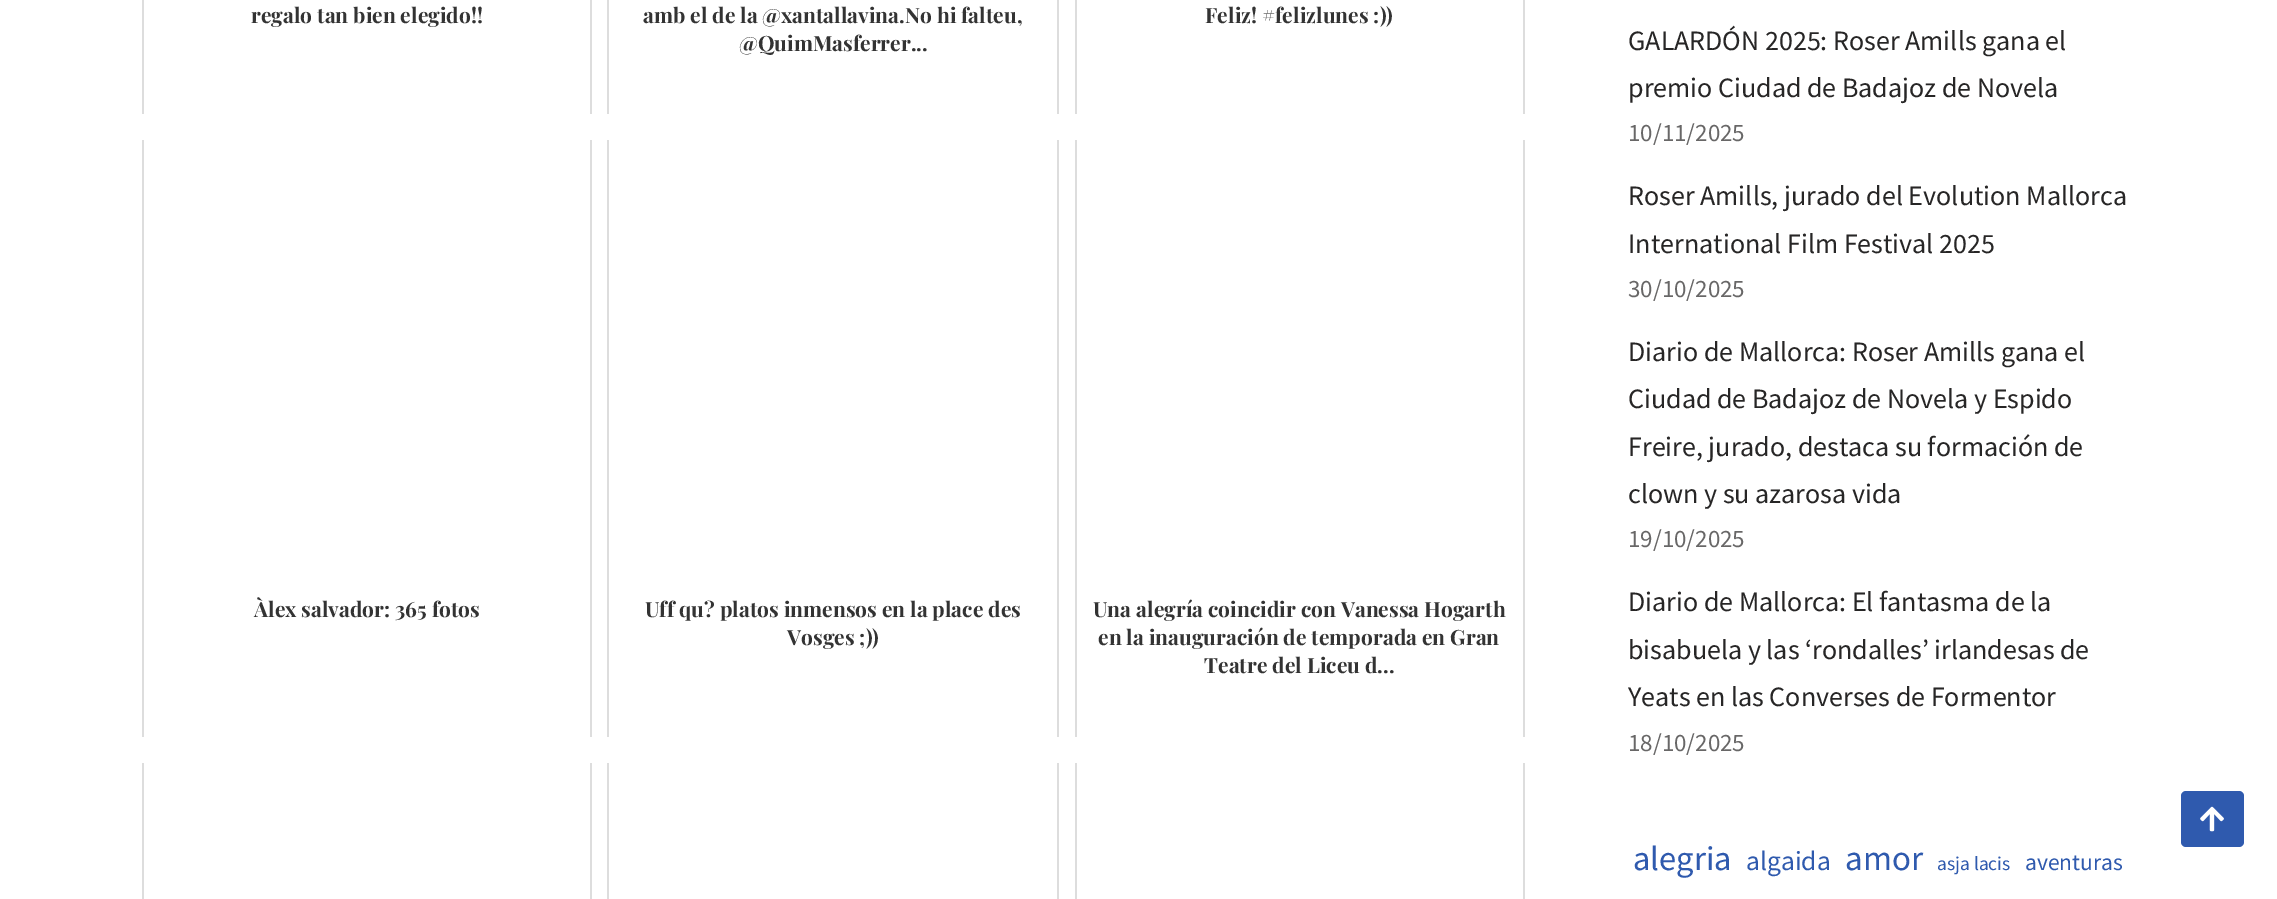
%!PS
<< /PageSize [2277 899] >> setpagedevice
/rgb { dup -16 bitshift 255 div exch dup -8 bitshift 255 and 255 div exch 255 and 255 div setrgbcolor } def
/font { [ exch dup neg 0 0 3 -1 roll 0 0 ] selectfont } def
/text { moveto show } def
/roundrect { 5 dict begin { /r /h /w /y /x } { exch def } forall
  x r add y moveto x w add y 2 copy h add r arct x w add y h add x 1 index r arct
  x y h add x y r arct x y 2 copy exch w add exch r arct closepath end } def
/picture { 5 dict begin { /h /w /y /x /name } { exch def } forall
  gsave x y translate w h scale
  w h 8 [w 0 0 h 0 0] name (r) file false 3 colorimage grestore end } def
0 899 translate 1 -1 scale
4 setmiterlimit
/s1 { /PlayfairDisplay-Bold 21 font 16#333333 rgb } def
/s2 { /SourceSansPro-Regular 28 font 16#272626 rgb } def
/s3 { /SourceSansPro-Regular 25 font 16#686767 rgb } def
/s4 { /SourceSansPro-Regular 34.5 font 16#2F5AAE rgb } def
/s5 { /SourceSansPro-Regular 27.5 font 16#2F5AAE rgb } def
/s6 { /SourceSansPro-Regular 35 font 16#2F5AAE rgb } def
/s7 { /SourceSansPro-Regular 19.5 font 16#2F5AAE rgb } def
/s8 { /SourceSansPro-Regular 23.5 font 16#2F5AAE rgb } def
16#FFFFFF rgb
0 0 2277 899 rectfill
16#DDDDDD rgb
590 0 2 114 rectfill
142 0 2 114 rectfill
s1
(regalo tan bien elegido!!) 251 23 text
16#DDDDDD rgb
1057 0 2 114 rectfill
607 0 2 114 rectfill
s1
(amb el de la @xantallavina.No hi falteu,) 643 23 text
(@QuimMasferrer...) 739 51 text
16#DDDDDD rgb
1523 0 2 114 rectfill
1075 0 2 114 rectfill
s1
(Feliz! #felizlunes :\)\)) 1205 23 text
16#DDDDDD rgb
590 140 2 597 rectfill
142 140 2 597 rectfill
s1
(Àlex salvador: 365 fotos) 254 617 text
16#DDDDDD rgb
1057 140 2 597 rectfill
607 140 2 597 rectfill
s1
(Uff qu? platos inmensos en la place des) 645 617 text
(Vosges ;\)\)) 787 645 text
16#DDDDDD rgb
1523 140 2 597 rectfill
1075 140 2 597 rectfill
s1
(Una alegría coincidir con Vanessa Hogarth) 1093 617 text
(en la inauguración de temporada en Gran) 1098 645 text
(Teatre del Liceu d...) 1204 673 text
16#DDDDDD rgb
590 763 2 136 rectfill
142 763 2 136 rectfill
1057 763 2 136 rectfill
607 763 2 136 rectfill
1523 763 2 136 rectfill
1075 763 2 136 rectfill
s2
(GALARDÓN 2025: Roser Amills gana el) 1628 50 text
(premio Ciudad de Badajoz de Novela) 1628 97 text
s3
(10/11/2025) 1628 141 text
s2
(Roser Amills, jurado del Evolution Mallorca) 1628 205 text
(International Film Festival 2025) 1628 253 text
s3
(30/10/2025) 1628 297 text
s2
(Diario de Mallorca: Roser Amills gana el) 1628 361 text
(Ciudad de Badajoz de Novela y Espido) 1628 408 text
(Freire, jurado, destaca su formación de) 1628 456 text
(clown y su azarosa vida) 1628 503 text
s3
(19/10/2025) 1628 547 text
s2
(Diario de Mallorca: El fantasma de la) 1628 611 text
(bisabuela y las ‘rondalles’ irlandesas de) 1628 659 text
(Yeats en las Converses de Formentor) 1628 706 text
s3
(18/10/2025) 1628 751 text
s4
(alegria) 1633 870 text
s5
(algaida) 1746 870 text
s6
(amor) 1845 870 text
s7
(asja lacis) 1937 870 text
s8
(aventuras) 2025 870 text
2181 791 63 56 5 roundrect fill
(pic1.raw) 2200 806 24 26 picture
showpage
